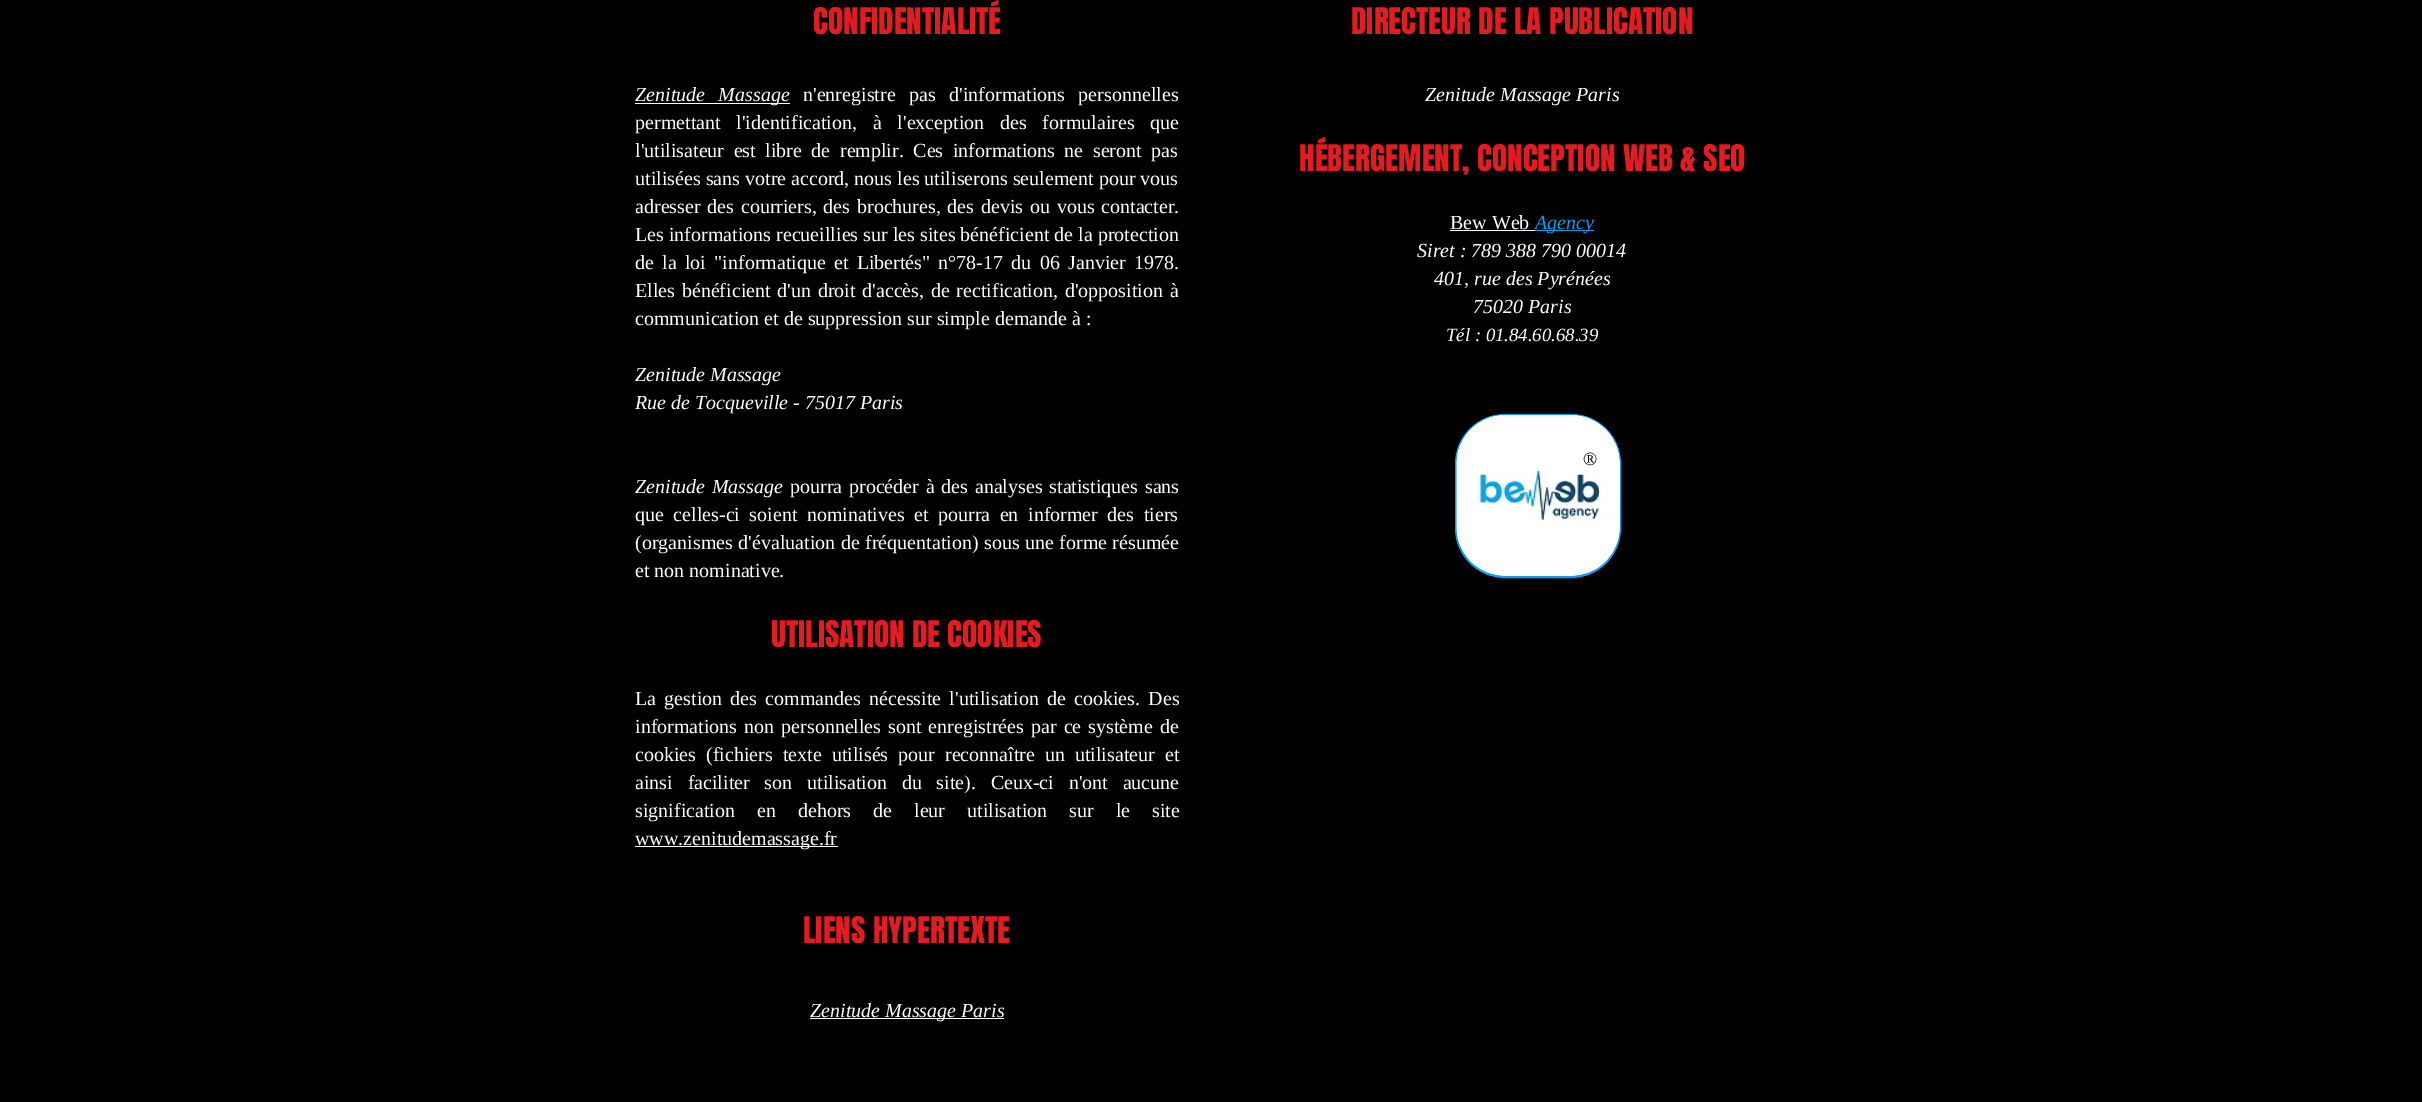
%!PS
<< /PageSize [2422 1102] >> setpagedevice
/rgb { dup -16 bitshift 255 div exch dup -8 bitshift 255 and 255 div exch 255 and 255 div setrgbcolor } def
/font { [ exch dup neg 0 0 3 -1 roll 0 0 ] selectfont } def
/text { moveto show } def
/roundrect { 5 dict begin { /r /h /w /y /x } { exch def } forall
  x r add y moveto x w add y 2 copy h add r arct x w add y h add x 1 index r arct
  x y h add x y r arct x y 2 copy exch w add exch r arct closepath end } def
/picture { 5 dict begin { /h /w /y /x /name } { exch def } forall
  gsave x y translate w h scale
  w h 8 [w 0 0 h 0 0] name (r) file false 3 colorimage grestore end } def
0 1102 translate 1 -1 scale
4 setmiterlimit
/s1 { /Anton-Regular 31.25 font 16#E21C21 rgb } def
/s2 { /LiberationSerif-Regular 20 font 16#FFFFFF rgb } def
/s3 { /LiberationSerif-Italic 20 font 16#FFFFFF rgb } def
/s4 { /LiberationSerif-Italic 20 font 16#0C9EED rgb } def
/s5 { /LiberationSerif-Italic 18.75 font 16#FFFFFF rgb } def
/s6 { /LiberationSerif-Regular 18.75 font 16#000000 rgb } def
16#000000 rgb
0 0 2422 1102 rectfill
s1
(CONFIDENTIALITÉ) 813 34 text
16#FFFFFF rgb
635 103 155 1 rectfill
/LiberationSerif-Italic 20 font
635 101 moveto 8.5 0 32 (Zenitude Massage) widthshow
/LiberationSerif-Regular 20 font
803 101 moveto 8.5 0 32 (n'enregistre pas d'informations personnelles) widthshow
635 129 moveto 10.75 0 32 (permettant l'identification, à l'exception des formulaires que) widthshow
635 157 moveto 4.5 0 32 (l'utilisateur est libre de remplir. Ces informations ne seront pas) widthshow
(utilisées sans votre accord, nous les utiliserons seulement pour vous) 635 185 text
635 213 moveto 1.75 0 32 (adresser des courriers, des brochures, des devis ou vous contacter.) widthshow
(Les informations recueillies sur les sites bénéficient de la protection) 635 241 text
635 269 moveto 3.25 0 32 (de la loi "informatique et Libertés" n°78-17 du 06 Janvier 1978.) widthshow
635 297 moveto 1.75 0 32 (Elles bénéficient d'un droit d'accès, de rectification, d'opposition à) widthshow
(communication et de suppression sur simple demande à :) 635 325 text
s3
(Zenitude Massage) 635 381 text
(Rue de Tocqueville - 75017 Paris) 635 409 text
635 493 moveto 1.75 0 32 (Zenitude Massage) widthshow
/LiberationSerif-Regular 20 font
790 493 moveto 1.75 0 32 (pourra procéder à des analyses statistiques sans) widthshow
635 521 moveto 4.5 0 32 (que celles-ci soient nominatives et pourra en informer des tiers) widthshow
635 549 moveto 0.5 0 32 (\(organismes d'évaluation de fréquentation\) sous une forme résumée) widthshow
(et non nominative.) 635 577 text
s1
(UTILISATION DE COOKIES) 771 647 text
/LiberationSerif-Regular 20 font
16#FFFFFF rgb
635 705 moveto 3.25 0 32 (La gestion des commandes nécessite l'utilisation de cookies. Des) widthshow
635 733 moveto 2 0 32 (informations non personnelles sont enregistrées par ce système de) widthshow
635 761 moveto 5 0 32 (cookies \(fichiers texte utilisés pour reconnaître un utilisateur et) widthshow
635 789 moveto 9.75 0 32 (ainsi faciliter son utilisation du site\). Ceux-ci n'ont aucune) widthshow
635 817 moveto 17 0 32 (signification en dehors de leur utilisation sur le site) widthshow
635 846 203 1 rectfill
(www.zenitudemassage.fr) 635 845 text
s1
(LIENS HYPERTEXTE) 803 943 text
16#FFFFFF rgb
810 1018 194 1 rectfill
s3
(Zenitude Massage Paris) 810 1017 text
s1
(DIRECTEUR DE LA PUBLICATION) 1351 34 text
s3
(Zenitude Massage Paris) 1425 101 text
s1
(HÉBERGEMENT, CONCEPTION WEB & SEO) 1299 171 text
s2
(Bew Web) 1450 229 text
1450 230 85 1 rectfill
16#0C9EED rgb
1535 230 59 1 rectfill
s4
(Agency) 1535 229 text
s3
(Siret : 789 388 790 00014) 1417 257 text
(401, rue des Pyrénées) 1434 285 text
(75020 Paris) 1473 313 text
s5
(Tél : 01.84.60.68.39) 1446 341 text
16#0C9EED rgb
1455.5 414.5 165 163 49.5 roundrect gsave fill grestore
stroke
(pic1.raw) 1456 415 164 161 picture
s6
(®) 1583 465 text
showpage
